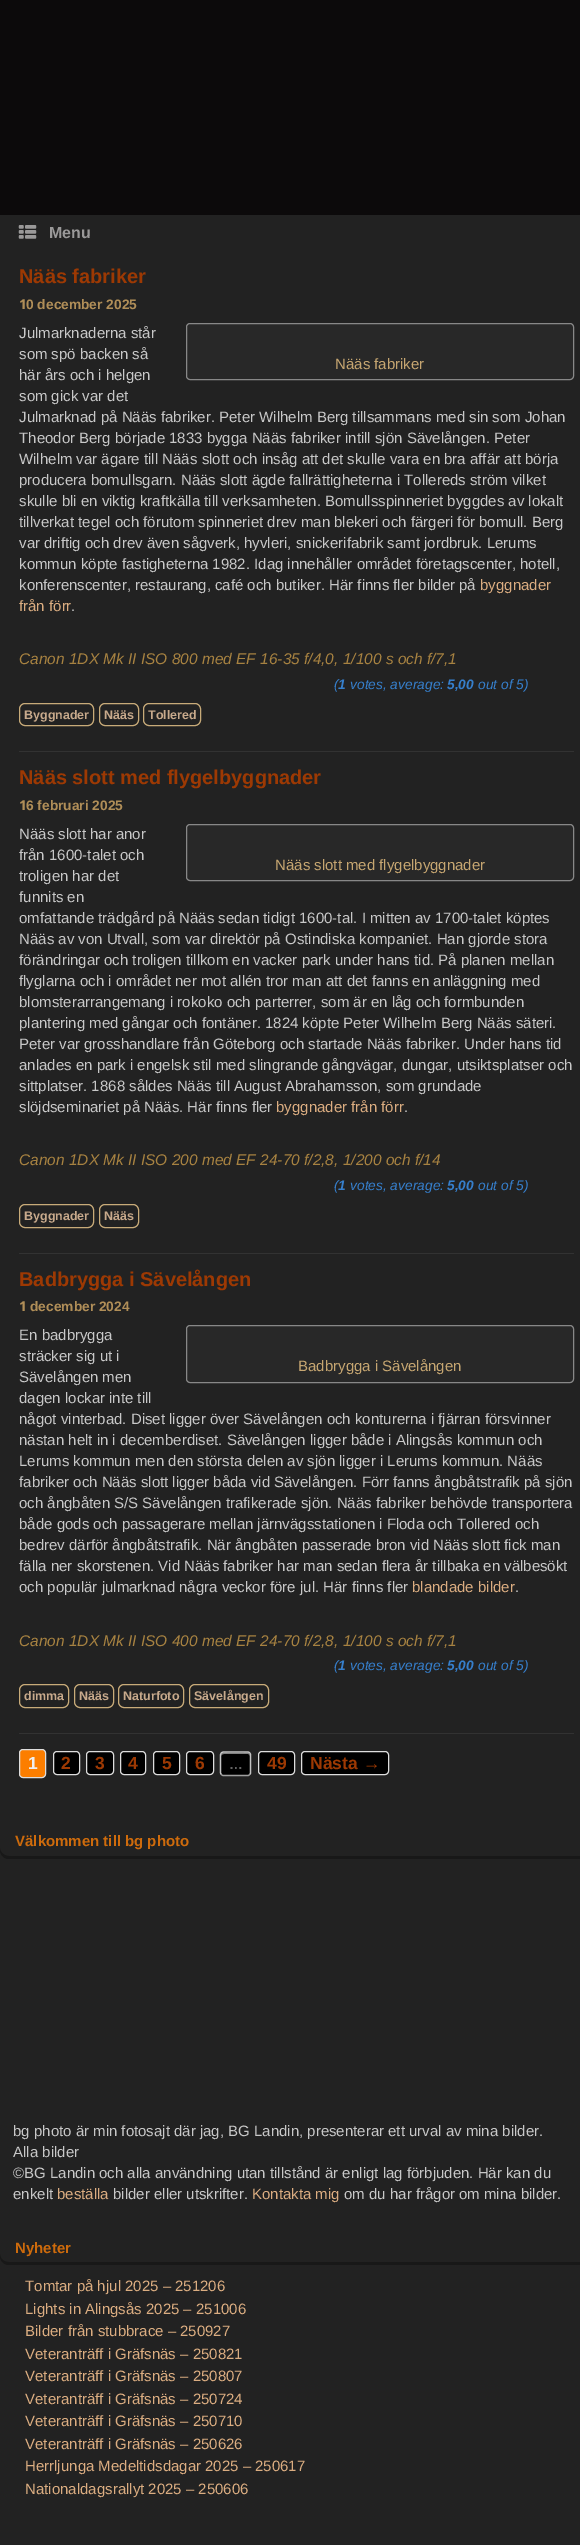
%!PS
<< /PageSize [580 2545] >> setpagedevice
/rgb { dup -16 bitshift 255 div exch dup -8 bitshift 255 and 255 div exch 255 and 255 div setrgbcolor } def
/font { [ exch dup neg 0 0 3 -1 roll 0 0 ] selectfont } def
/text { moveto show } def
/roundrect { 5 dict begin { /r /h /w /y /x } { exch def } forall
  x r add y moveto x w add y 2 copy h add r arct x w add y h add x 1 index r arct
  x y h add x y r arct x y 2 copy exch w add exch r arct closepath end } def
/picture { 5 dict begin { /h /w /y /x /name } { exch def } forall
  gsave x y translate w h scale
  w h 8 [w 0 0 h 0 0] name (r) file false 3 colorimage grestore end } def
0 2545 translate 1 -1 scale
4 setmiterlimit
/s1 { /LiberationSans-Bold 16 font 16#9A9999 rgb } def
/s2 { /LiberationSans-Bold 20 font 16#9D3903 rgb } def
/s3 { /NotoSans-Bold 13.75 font 16#B08E58 rgb } def
/s4 { /LiberationSans-Bold 13.75 font 16#B08E58 rgb } def
/s5 { /LiberationSans-Regular 15 font 16#C8C8C8 rgb } def
/s6 { /LiberationSans-Regular 15 font 16#DBAD81 rgb } def
/s7 { /LiberationSans-Regular 15 font 16#C6A671 rgb } def
/s8 { /LiberationSans-Italic 15.45 font 16#A78241 rgb } def
/s9 { /LiberationSans-Italic 13.75 font 16#367FCC rgb } def
/s10 { /LiberationSans-BoldItalic 13.75 font 16#367FCC rgb } def
/s11 { /LiberationSans-Bold 12.5 font 16#C8AA8C rgb } def
/s12 { /LiberationSans-Bold 17.5 font 16#EFEFEF rgb } def
/s13 { /LiberationSans-Bold 17.5 font 16#9D3903 rgb } def
/s14 { /LiberationSans-Bold 13.75 font 16#646464 rgb } def
/s15 { /LiberationSans-Bold 15 font 16#CE6B0C rgb } def
16#0C0A0B rgb
0 0 580 2545 rectfill
16#222222 rgb
0 215 580 2330 rectfill
(pic1.raw) 18 225 19 14 picture
s1
(Menu) 49 238 text
16#323232 rgb
19 751 555 1 rectfill
s2
(Nääs fabriker) 19 283 text
s3
(1) 19 309 text
s4
(0 december 2025) 26 309 text
s5
(Julmarknaderna står) 19 338 text
(som spö backen så) 19 359 text
(här års och i helgen) 19 380 text
(som gick var det) 19 401 text
(Julmarknad på Nääs fabriker. Peter Wilhelm Berg tillsammans med sin som Johan) 19 422 text
(Theodor Berg började 1833 bygga Nääs fabriker intill sjön Sävelången. Peter) 19 443 text
(Wilhelm var ägare till Nääs slott och insåg att det skulle vara en bra affär att börja) 19 464 text
(producera bomullsgarn. Nääs slott ägde fallrättigheterna i Tollereds ström vilket) 19 485 text
(skulle bli en viktig kraftkälla till verksamheten. Bomullsspinneriet byggdes av lokalt) 19 506 text
(tillverkat tegel och förutom spinneriet drev man blekeri och färgeri för bomull. Berg) 19 527 text
(var driftig och drev även sågverk, hyvleri, snickerifabrik samt jordbruk. Lerums) 19 548 text
(kommun köpte fastigheterna 1982. Idag innehåller området företagscenter, hotell,) 19 569 text
(konferenscenter, restaurang, café och butiker. Här finns fler bilder på) 19 590 text
s6
(byggnader) 480 590 text
(från förr) 19 611 text
s5
(.) 71 611 text
16#282828 rgb
186.5 323.5 387 56 3.5 roundrect gsave fill grestore
16#888888 rgb
stroke
s7
(Nääs fabriker) 335 369 text
s8
(Canon 1DX Mk II ISO 800 med EF 16-35 f/4,0, 1/100 s och f/7,1) 19 664 text
s9
(\() 334 689 text
s10
(1) 338 689 text
s9
(votes, average:) 350 689 text
s10
(5,00) 447 689 text
s9
(out of 5\)) 478 689 text
16#C8AB79 rgb
19.5 703.5 74 22 5.5 roundrect stroke
s11
(Byggnader) 24 719 text
16#C8AB79 rgb
99.5 703.5 39 22 5.5 roundrect stroke
s11
(Nääs) 104 719 text
16#C8AB79 rgb
143.5 703.5 57 22 5.5 roundrect stroke
s11
(Tollered) 148 719 text
16#323232 rgb
19 1253 555 1 rectfill
s2
(Nääs slott med flygelbyggnader) 19 784 text
s3
(1) 19 810 text
s4
(6 februari 2025) 26 810 text
s5
(Nääs slott har anor) 19 839 text
(från 1600-talet och) 19 860 text
(troligen har det) 19 881 text
(funnits en) 19 902 text
(omfattande trädgård på Nääs sedan tidigt 1600-tal. I mitten av 1700-talet köptes) 19 923 text
(Nääs av von Utvall, som var direktör på Ostindiska kompaniet. Han gjorde stora) 19 944 text
(förändringar och troligen tillkom en vacker park under hans tid. På planen mellan) 19 965 text
(flyglarna och i området ner mot allén tror man att det fanns en anläggning med) 19 986 text
(blomsterarrangemang i rokoko och parterrer, som är en låg och formbunden) 19 1007 text
(plantering med gångar och fontäner. 1824 köpte Peter Wilhelm Berg Nääs säteri.) 19 1028 text
(Peter var grosshandlare från Göteborg och startade Nääs fabriker. Under hans tid) 19 1049 text
(anlades en park i engelsk stil med slingrande gångvägar, dungar, utsiktsplatser och) 19 1070 text
(sittplatser. 1868 såldes Nääs till August Abrahamsson, som grundade) 19 1091 text
(slöjdseminariet på Nääs. Här finns fler) 19 1112 text
s6
(byggnader från förr) 276 1112 text
s5
(.) 404 1112 text
16#282828 rgb
186.5 824.5 387 56 3.5 roundrect gsave fill grestore
16#888888 rgb
stroke
s7
(Nääs slott med flygelbyggnader) 275 870 text
s8
(Canon 1DX Mk II ISO 200 med EF 24-70 f/2,8, 1/200 och f/14) 19 1165 text
s9
(\() 334 1190 text
s10
(1) 338 1190 text
s9
(votes, average:) 350 1190 text
s10
(5,00) 447 1190 text
s9
(out of 5\)) 478 1190 text
16#C8AB79 rgb
19.5 1204.5 74 23 5.5 roundrect stroke
s11
(Byggnader) 24 1220 text
16#C8AB79 rgb
99.5 1204.5 39 23 5.5 roundrect stroke
s11
(Nääs) 104 1220 text
16#323232 rgb
19 1733 555 1 rectfill
s2
(Badbrygga i Sävelången) 19 1286 text
s3
(1) 19 1311 text
s4
(december 2024) 30 1311 text
s5
(En badbrygga) 19 1340 text
(sträcker sig ut i) 19 1361 text
(Sävelången men) 19 1382 text
(dagen lockar inte till) 19 1403 text
(något vinterbad. Diset ligger över Sävelången och konturerna i fjärran försvinner) 19 1424 text
(nästan helt in i decemberdiset. Sävelången ligger både i Alingsås kommun och) 19 1445 text
(Lerums kommun men den största delen av sjön ligger i Lerums kommun. Nääs) 19 1466 text
(fabriker och Nääs slott ligger båda vid Sävelången. Förr fanns ångbåtstrafik på sjön) 19 1487 text
(och ångbåten S/S Sävelången trafikerade sjön. Nääs fabriker behövde transportera) 19 1508 text
(både gods och passagerare mellan järnvägsstationen i Floda och Tollered och) 19 1529 text
(bedrev därför ångbåtstrafik. När ångbåten passerade bron vid Nääs slott fick man) 19 1550 text
(fälla ner skorstenen. Vid Nääs fabriker har man sedan flera år tillbaka en välbesökt) 19 1571 text
(och populär julmarknad några veckor före jul. Här finns fler) 19 1592 text
s6
(blandade bilder) 412 1592 text
s5
(.) 515 1592 text
16#282828 rgb
186.5 1325.5 387 57 3.5 roundrect gsave fill grestore
16#888888 rgb
stroke
s7
(Badbrygga i Sävelången) 298 1371 text
s8
(Canon 1DX Mk II ISO 400 med EF 24-70 f/2,8, 1/100 s och f/7,1) 19 1646 text
s9
(\() 334 1670 text
s10
(1) 338 1670 text
s9
(votes, average:) 350 1670 text
s10
(5,00) 447 1670 text
s9
(out of 5\)) 478 1670 text
16#C8AB79 rgb
19.5 1684.5 49 23 5.5 roundrect stroke
s11
(dimma) 24 1700 text
16#C8AB79 rgb
74.5 1684.5 39 23 5.5 roundrect stroke
s11
(Nääs) 79 1700 text
16#C8AB79 rgb
118.5 1684.5 65 23 5.5 roundrect stroke
s11
(Naturfoto) 123 1700 text
16#C8AB79 rgb
189.5 1684.5 79 23 5.5 roundrect stroke
s11
(Sävelången) 194 1700 text
16#FC7E00 rgb
19.5 1749.5 26 28 3.5 roundrect gsave fill grestore
16#DDDDDD rgb
stroke
s12
(1) 28 1769 text
16#000000 rgb
53.5 1751.5 26 23 3.5 roundrect gsave fill grestore
16#DDDDDD rgb
stroke
s13
(2) 61 1769 text
16#000000 rgb
86.5 1751.5 27 23 3.5 roundrect gsave fill grestore
16#DDDDDD rgb
stroke
s13
(3) 95 1769 text
16#000000 rgb
120.5 1751.5 25 23 3.5 roundrect gsave fill grestore
16#DDDDDD rgb
stroke
s13
(4) 128 1769 text
16#000000 rgb
153.5 1751.5 26 23 3.5 roundrect gsave fill grestore
16#DDDDDD rgb
stroke
s13
(5) 162 1769 text
16#000000 rgb
186.5 1751.5 27 23 3.5 roundrect gsave fill grestore
16#DDDDDD rgb
stroke
s13
(6) 195 1769 text
16#000000 rgb
220 1751 31 25 4 roundrect fill
16#808080 rgb
224 1754 moveto 248 1754 lineto 249 1754 250 1755 250 1756 curveto 250 1752 246.5 1753 243.5 1753 curveto 227.5 1753 lineto 224.5 1753 221 1752 221 1756 curveto 221 1755 222 1754 224 1754 curveto closepath fill
16#D2D2D2 rgb
1.2 setlinewidth
221.5 1753 moveto 222 1752 223 1752 224 1752 curveto 247.5 1752 lineto 248.5 1752 249 1752 249.5 1753 curveto stroke
16#C3C3C3 rgb
249.5 1753 moveto 250.5 1753.5 250.5 1754 250.5 1755 curveto 250.5 1772.5 lineto 250.5 1773.5 250.5 1774 249.5 1774.5 curveto stroke
16#9F9F9F rgb
249.5 1774.5 moveto 249 1775.5 248.5 1775.5 247.5 1775.5 curveto 224 1775.5 lineto 223 1775.5 222 1775.5 221.5 1774.5 curveto stroke
16#C3C3C3 rgb
221.5 1774.5 moveto 221 1774 220.5 1773.5 220.5 1772.5 curveto 220.5 1755 lineto 220.5 1754 221 1753.5 221.5 1753 curveto stroke
s14
(…) 229 1769 text
16#000000 rgb
258.5 1751.5 36 23 3.5 roundrect gsave fill grestore
16#DDDDDD rgb
1 setlinewidth
stroke
s13
(49) 267 1769 text
16#000000 rgb
301.5 1751.5 87 23 3.5 roundrect gsave fill grestore
16#DDDDDD rgb
stroke
s13
(Nästa →) 310 1769 text
16#181818 rgb
0 1848 moveto 0 1850 lineto 0 1855 4 1859 9 1859 curveto 580 1859 lineto 580 1856 lineto 9 1856 lineto 4 1856 0 1852 0 1848 curveto closepath fill
s15
(Välkommen till bg photo) 15 1846 text
s5
(bg photo är min fotosajt där jag, BG Landin, presenterar ett urval av mina bilder.) 13 2136 text
(Alla bilder) 13 2157 text
(©BG Landin och alla användning utan tillstånd är enligt lag förbjuden. Här kan du) 13 2178 text
(enkelt) 13 2199 text
s6
(beställa) 57 2199 text
s5
(bilder eller utskrifter.) 113 2199 text
s6
(Kontakta mig) 252 2199 text
s5
(om du har frågor om mina bilder.) 344 2199 text
16#181818 rgb
0 2254 moveto 0 2256 lineto 0 2261 4 2265 9 2265 curveto 580 2265 lineto 580 2262 lineto 9 2262 lineto 4 2262 0 2259 0 2254 curveto closepath fill
s15
(Nyheter) 15 2253 text
s6
(Tomtar på hjul 2025 – 251206) 25 2291 text
(Lights in Alingsås 2025 – 251006) 25 2314 text
(Bilder från stubbrace – 250927) 25 2336 text
(Veteranträff i Gräfsnäs – 250821) 25 2359 text
(Veteranträff i Gräfsnäs – 250807) 25 2381 text
(Veteranträff i Gräfsnäs – 250724) 25 2404 text
(Veteranträff i Gräfsnäs – 250710) 25 2426 text
(Veteranträff i Gräfsnäs – 250626) 25 2449 text
(Herrljunga Medeltidsdagar 2025 – 250617) 25 2471 text
(Nationaldagsrallyt 2025 – 250606) 25 2494 text
showpage
